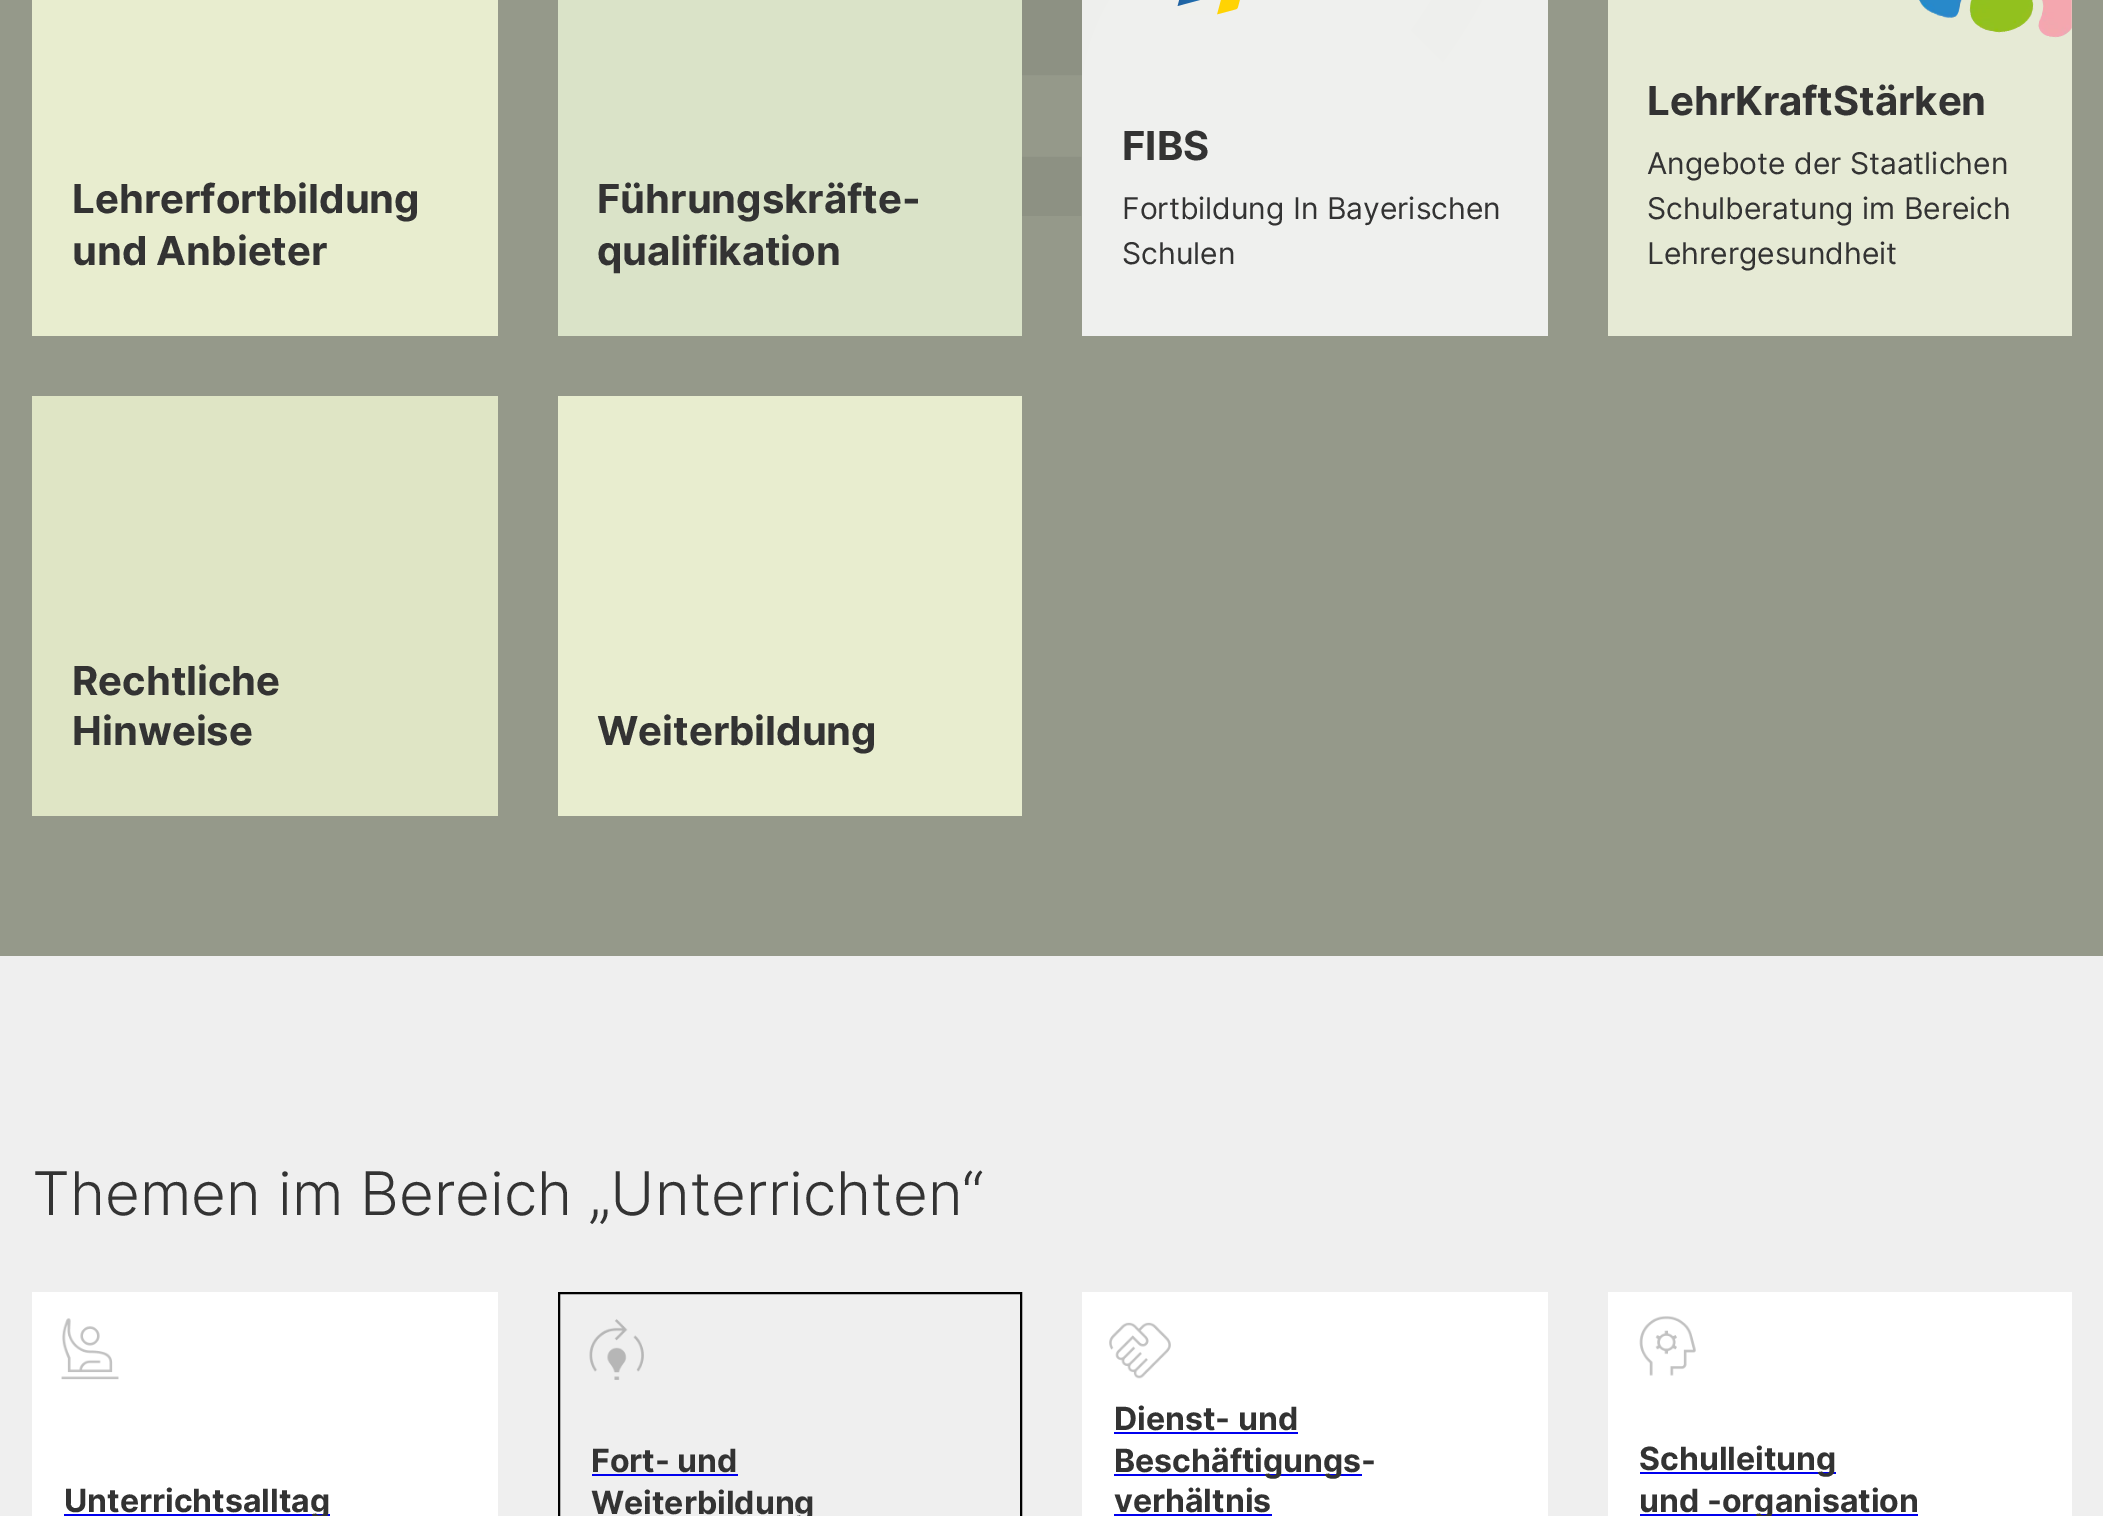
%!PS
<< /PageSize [2103 1516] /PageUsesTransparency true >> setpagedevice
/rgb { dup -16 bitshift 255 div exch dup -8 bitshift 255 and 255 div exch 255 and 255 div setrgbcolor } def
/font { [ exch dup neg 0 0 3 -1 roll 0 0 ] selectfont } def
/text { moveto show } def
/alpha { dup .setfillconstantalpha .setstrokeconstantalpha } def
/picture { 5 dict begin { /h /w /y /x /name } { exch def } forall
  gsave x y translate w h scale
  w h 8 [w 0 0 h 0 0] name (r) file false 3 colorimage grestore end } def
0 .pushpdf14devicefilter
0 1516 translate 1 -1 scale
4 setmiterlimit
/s1 { /Inter-Bold 40 font 16#333333 rgb } def
/s2 { /Inter-Regular 30 font 16#333333 rgb } def
/s3 { /Inter-Light 60 font 16#333333 rgb } def
/s4 { /Inter-Bold 32 font 16#333333 rgb } def
16#EFEFEF rgb
0 0 2103 1516 rectfill
16#95998A rgb
0 0 2103 956 rectfill
(pic1.raw) 1022 0 460 216 picture
16#E8EDCF rgb
32 0 466 336 rectfill
s1
(Lehrerfortbildung) 72 213 text
(und Anbieter) 72 265 text
16#DAE3C8 rgb
558 0 464 336 rectfill
s1
(Führungskräfte-) 597 213 text
(qualifikation) 597 265 text
0.85 alpha
16#FFFFFF rgb
1082 0 466 336 rectfill
1 alpha
(pic2.raw) 1177 0 63 15 picture
s1
(FIBS) 1122 160 text
s2
(Fortbildung In Bayerischen) 1122 219 text
(Schulen) 1122 264 text
16#E6EAD5 rgb
1608 0 464 336 rectfill
(pic3.raw) 1919 0 153 38 picture
s1
(LehrKraftStärken) 1647 115 text
s2
(Angebote der Staatlichen) 1647 174 text
(Schulberatung im Bereich) 1647 219 text
(Lehrergesundheit) 1647 264 text
16#DFE5C5 rgb
32 396 466 420 rectfill
s1
(Rechtliche) 72 695 text
(Hinweise) 72 745 text
16#E8EDCF rgb
558 396 464 420 rectfill
s1
(Weiterbildung) 597 745 text
s3
(Themen im Bereich „Unterrichten“) 32 1215 text
16#FFFFFF rgb
32 1292 466 224 rectfill
(pic4.raw) 61 1318 58 62 picture
16#0000EE rgb
64 1514 266 2 rectfill
s4
(Unterrichtsalltag) 64 1512 text
(pic5.raw) 589 1319 55 61 picture
16#000000 rgb
2 setlinewidth
559 1293 462 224 rectstroke
s4
(Fort- und) 591 1472 text
16#0000EE rgb
592 1474 146 2 rectfill
s4
(Weiterbildung) 591 1514 text
16#FFFFFF rgb
1082 1292 466 224 rectfill
(pic6.raw) 1109 1322 62 57 picture
s4
(Dienst- und) 1114 1430 text
16#0000EE rgb
1114 1432 184 2 rectfill
1114 1474 248 2 rectfill
s4
(Beschäftigungs-) 1114 1472 text
(verhältnis) 1114 1512 text
16#0000EE rgb
1114 1514 158 2 rectfill
16#FFFFFF rgb
1608 1292 464 224 rectfill
(pic7.raw) 1639 1316 57 60 picture
16#0000EE rgb
1640 1472 196 2 rectfill
s4
(Schulleitung) 1639 1470 text
16#0000EE rgb
1640 1514 278 2 rectfill
s4
(und -organisation) 1639 1512 text
.poppdf14devicefilter showpage
